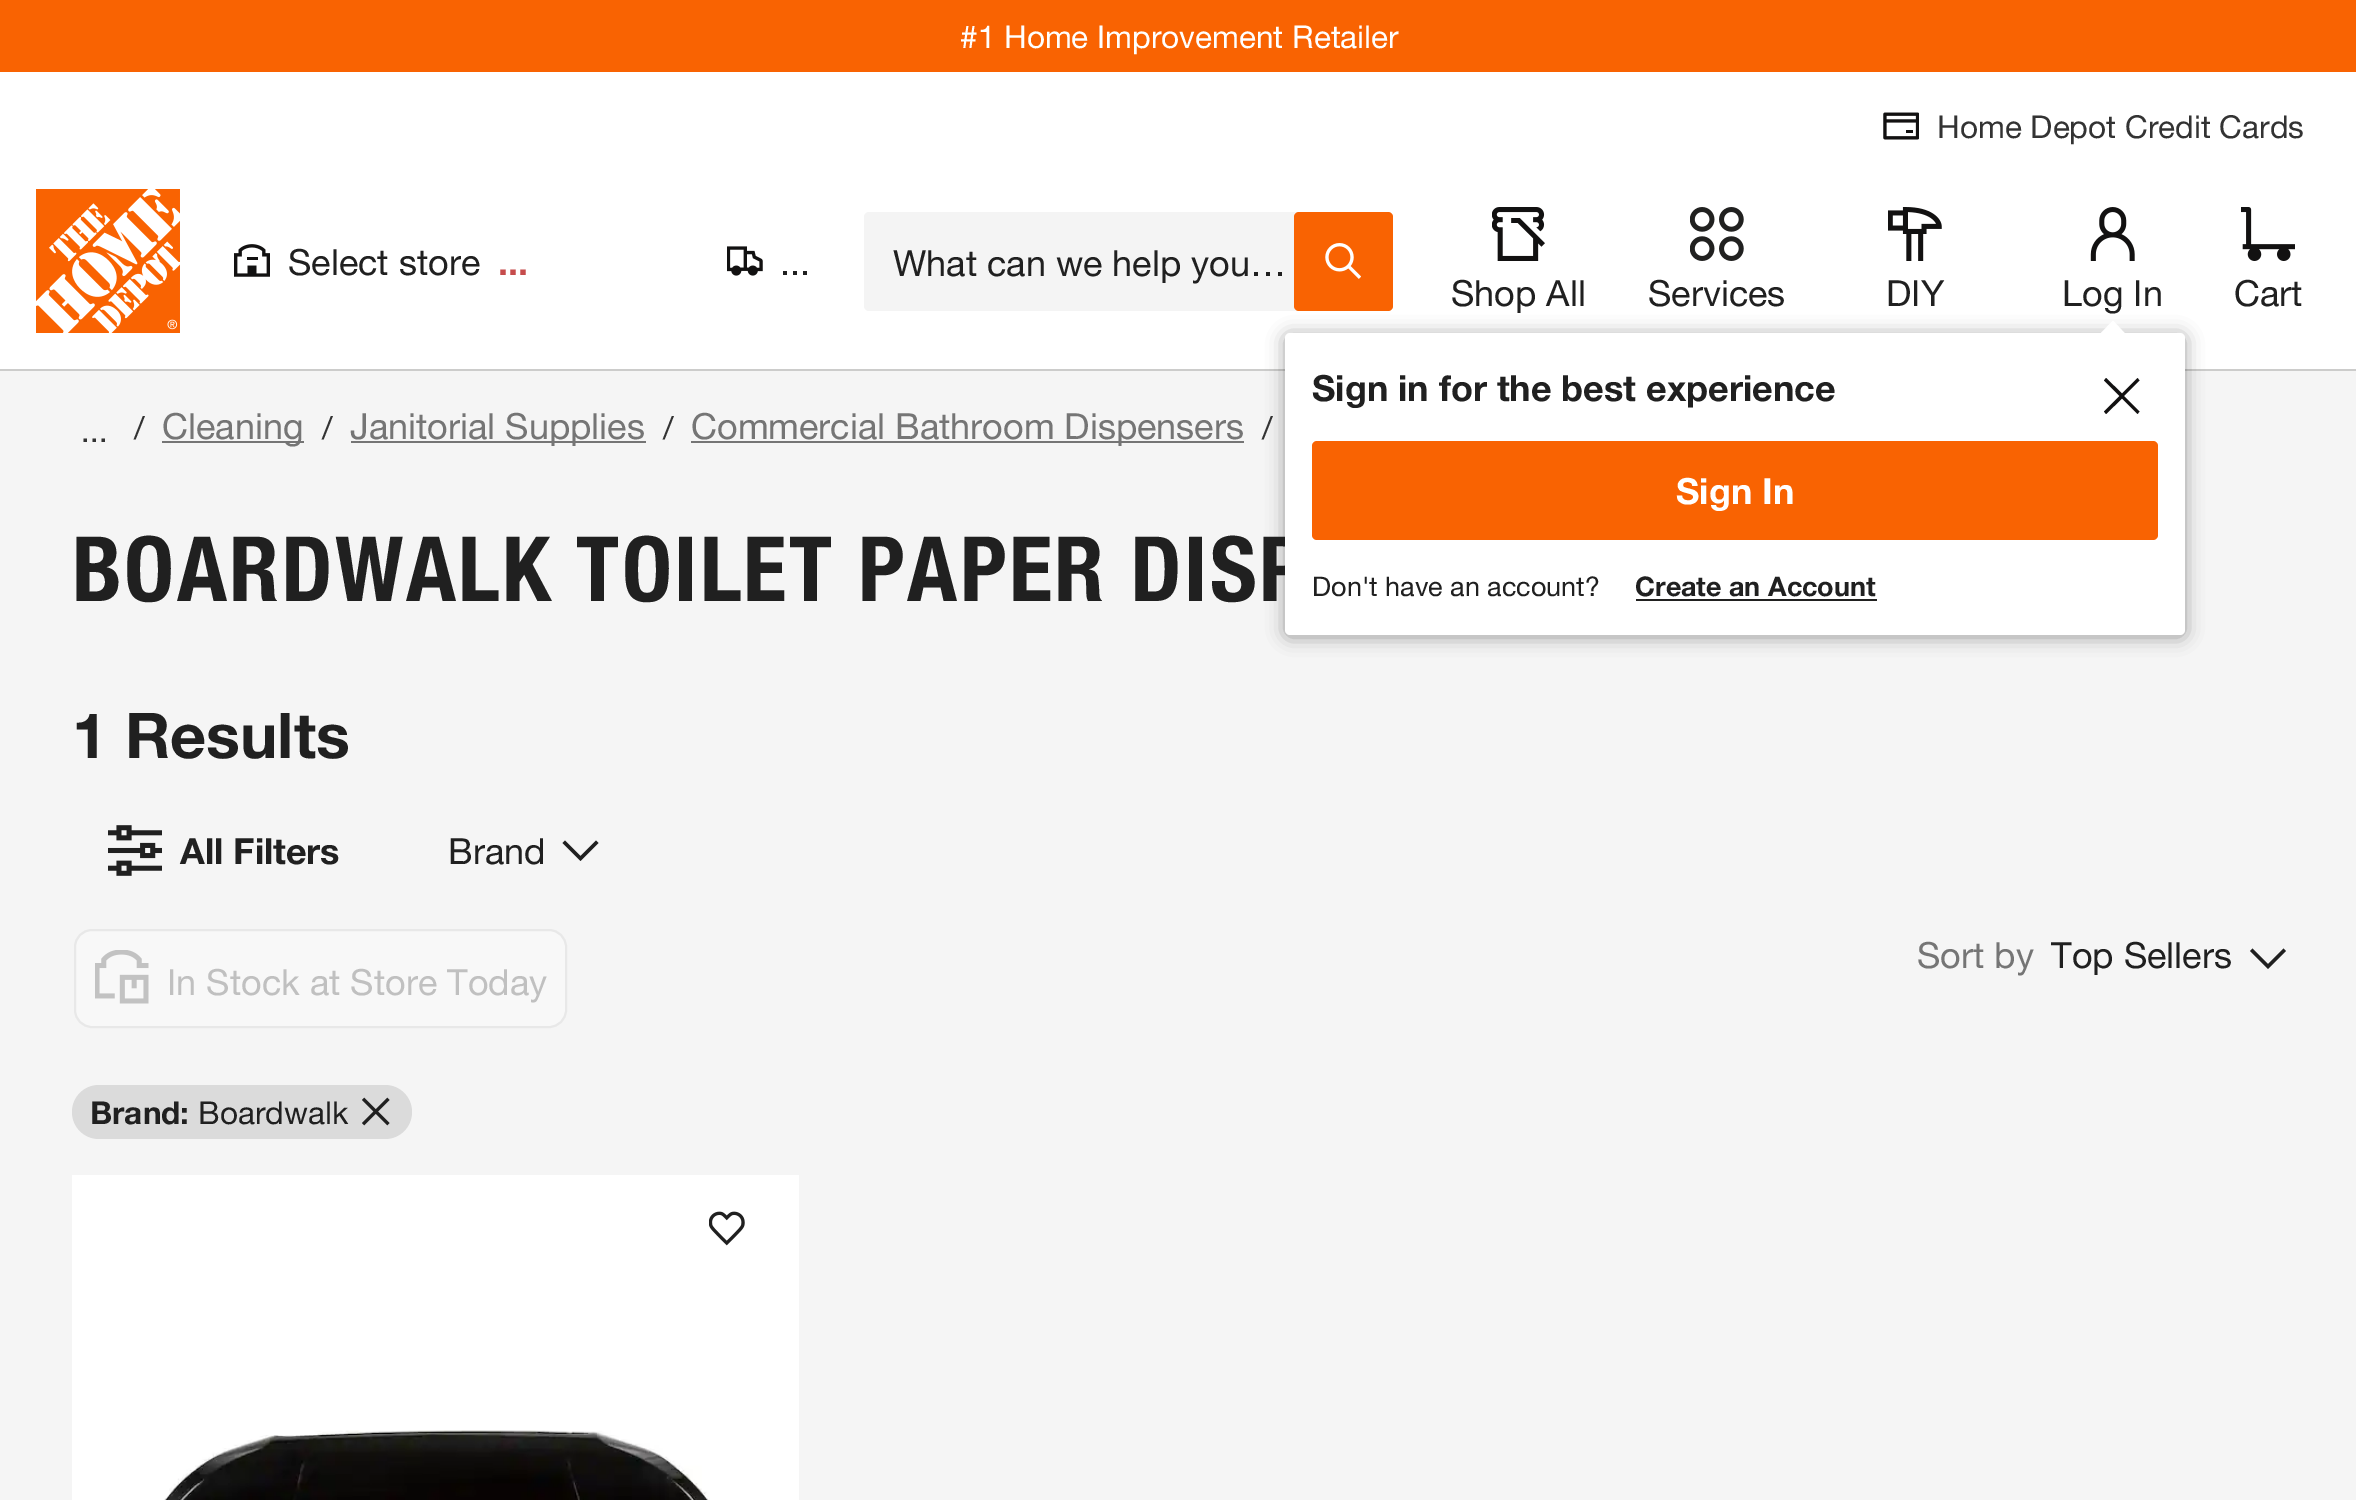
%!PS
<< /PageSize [2356 1500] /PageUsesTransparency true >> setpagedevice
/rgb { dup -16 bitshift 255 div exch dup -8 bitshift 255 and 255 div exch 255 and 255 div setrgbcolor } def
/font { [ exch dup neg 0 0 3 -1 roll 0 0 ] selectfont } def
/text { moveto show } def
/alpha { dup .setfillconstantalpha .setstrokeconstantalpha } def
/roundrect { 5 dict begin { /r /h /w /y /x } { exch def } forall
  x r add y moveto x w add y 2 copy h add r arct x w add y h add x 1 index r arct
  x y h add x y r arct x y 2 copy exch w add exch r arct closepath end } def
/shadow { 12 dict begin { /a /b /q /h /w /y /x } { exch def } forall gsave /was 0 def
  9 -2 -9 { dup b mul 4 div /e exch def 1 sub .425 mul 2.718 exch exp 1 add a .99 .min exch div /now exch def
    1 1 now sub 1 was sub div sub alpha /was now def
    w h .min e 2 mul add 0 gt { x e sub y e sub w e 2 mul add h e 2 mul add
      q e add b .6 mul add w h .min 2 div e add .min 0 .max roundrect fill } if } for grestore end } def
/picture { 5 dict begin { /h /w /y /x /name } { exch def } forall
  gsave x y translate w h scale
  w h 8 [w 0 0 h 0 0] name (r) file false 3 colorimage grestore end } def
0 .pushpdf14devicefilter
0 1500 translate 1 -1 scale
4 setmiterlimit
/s1 { /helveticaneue-Regular 31.5 font 16#FFFFFF rgb } def
/s2 { /helveticaneue-Regular 31.5 font 16#333333 rgb } def
/s3 { /helveticaneue-Regular 36 font 16#202020 rgb } def
/s4 { /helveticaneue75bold-Bold 36 font 16#C64C4C rgb } def
/s5 { /helveticaneue75bold-Bold 36 font 16#202020 rgb } def
/s6 { /helveticaneue75bold-Bold 36 font 16#FFFFFF rgb } def
/s7 { /helveticaneue-Regular 27 font 16#202020 rgb } def
/s8 { /helveticaneue75bold-Bold 27 font 16#202020 rgb } def
/s9 { /helveticaneue-Regular 36 font 16#757575 rgb } def
/s10 { /helveticaneue75bold-Bold 63 font 16#202020 rgb } def
/s11 { /helveticaneue-Regular 36 font 16#C0C0C0 rgb } def
/s12 { /helveticaneue75bold-Bold 31.5 font 16#202020 rgb } def
/s13 { /helveticaneue-Regular 31.5 font 16#202020 rgb } def
16#FFFFFF rgb
0 0 2356 1500 rectfill
16#F96302 rgb
0 0 2356 72 rectfill
s1
(#1 Home Improvement Retailer) 960 48 text
16#CCCCCB rgb
0 369 2356 2 rectfill
(pic1.raw) 1883 112 36 28 picture
s2
(Home Depot Credit Cards) 1937 138 text
(pic2.raw) 36 189 144 144 picture
(pic3.raw) 234 244 36 33 picture
s3
(Select store) 288 275 text
s4
(...) 498 275 text
(pic4.raw) 727 246 36 30 picture
s3
(...) 780 275 text
16#F4F4F4 rgb
864 212 529 99 5 roundrect fill
s3
(What can we help you…) 893 276 text
16#F96302 rgb
1294 212 99 99 5 roundrect fill
(pic5.raw) 1325 243 36 36 picture
(pic6.raw) 1492 207 53 54 picture
s3
(Shop All) 1451 306 text
(pic7.raw) 1690 207 54 54 picture
(Services) 1648 306 text
(pic8.raw) 1888 207 54 54 picture
(DIY) 1886 306 text
(pic9.raw) 2090 207 45 54 picture
(Log In) 2062 306 text
16#F5F5F5 rgb
0 371 2356 1129 rectfill
16#000000 rgb
1285 335 900 302 5 9 0.38 shadow
/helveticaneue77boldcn-Bold 90 font
16#202020 rgb
72 601 moveto 2.25 0 (BOARDWALK TOILET PAPER DISP) ashow
16#FFFFFF rgb
1285 333 900 302 5 roundrect fill
2113 320.5 moveto 2100.5 333.5 lineto 2125 333.5 lineto closepath fill
s5
(Sign in for the best experience) 1312 401 text
16#121111 rgb
2122 393.5 moveto 2106 378 lineto 2104 380.5 lineto 2119.5 396 lineto 2104 411.5 lineto 2106 414 lineto 2122 398.5 lineto 2137.5 414 lineto 2139.5 411.5 lineto 2124 396 lineto 2139.5 380.5 lineto 2137.5 378 lineto closepath fill
16#F96302 rgb
1312 441 846 99 5 roundrect fill
s6
(Sign In) 1676 504 text
s7
(Don't have an account?) 1312 596 text
s8
(Create an Account) 1635 596 text
16#212120 rgb
1636 599 241 2 rectfill
(pic10.raw) 2241 207 54 54 picture
s3
(Cart) 2234 306 text
s2
(...) 81 442 text
(/) 134 439 text
16#757575 rgb
162 441 142 2 rectfill
s9
(Cleaning) 162 439 text
s2
(/) 322 439 text
16#757575 rgb
351 441 295 2 rectfill
s9
(Janitorial Supplies) 350 439 text
s2
(/) 663 439 text
16#757575 rgb
691 441 553 2 rectfill
s9
(Commercial Bathroom Dispensers) 691 439 text
s2
(/) 1262 439 text
s10
(1 Results) 72 758 text
(pic11.raw) 108 825 54 51 picture
s5
(All Filters) 180 864 text
s3
(Brand) 448 864 text
598.5 843 moveto 580.5 861 lineto 562.5 843 lineto 565 840.5 lineto 580.5 856 lineto 596 840.5 lineto closepath fill
s9
(Sort by) 1917 968 text
s3
(Top Sellers) 2051 968 text
2286 951 moveto 2268 969 lineto 2250 951 lineto 2252.5 948.5 lineto 2268 964 lineto 2283.5 948.5 lineto closepath fill
16#F8F8F8 rgb
75 930 491 97 17 roundrect gsave fill grestore
16#E8E8E8 rgb
2 setlinewidth
stroke
(pic12.raw) 95 950 54 54 picture
s11
(In Stock at Store Today) 167 995 text
16#DBDBDB rgb
72 1085 340 54 27 roundrect fill
s12
(Brand:) 90 1124 text
s13
(Boardwalk) 198 1124 text
(pic13.raw) 362 1097 28 29 picture
16#FFFFFF rgb
72 1175 727 325 rectfill
(pic14.raw) 709 1211 36 35 picture
(pic15.raw) 164 1430 546 70 picture
.poppdf14devicefilter showpage
